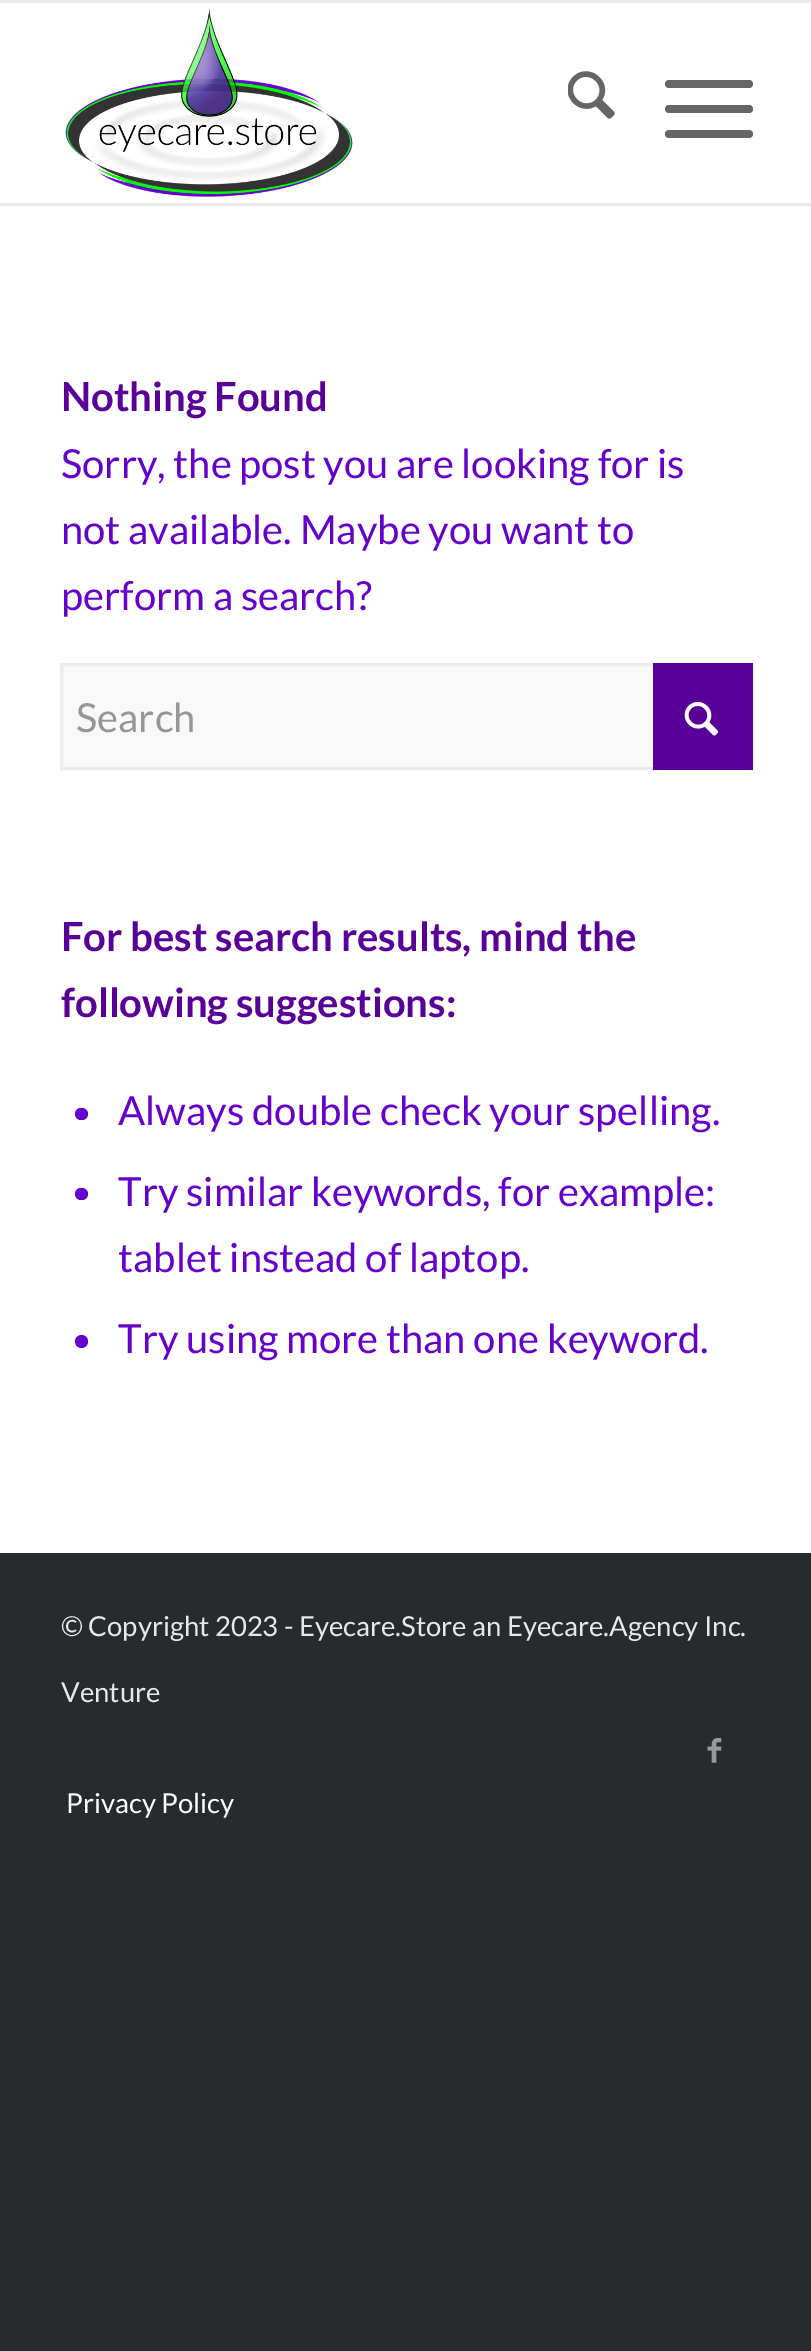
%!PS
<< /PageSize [811 2351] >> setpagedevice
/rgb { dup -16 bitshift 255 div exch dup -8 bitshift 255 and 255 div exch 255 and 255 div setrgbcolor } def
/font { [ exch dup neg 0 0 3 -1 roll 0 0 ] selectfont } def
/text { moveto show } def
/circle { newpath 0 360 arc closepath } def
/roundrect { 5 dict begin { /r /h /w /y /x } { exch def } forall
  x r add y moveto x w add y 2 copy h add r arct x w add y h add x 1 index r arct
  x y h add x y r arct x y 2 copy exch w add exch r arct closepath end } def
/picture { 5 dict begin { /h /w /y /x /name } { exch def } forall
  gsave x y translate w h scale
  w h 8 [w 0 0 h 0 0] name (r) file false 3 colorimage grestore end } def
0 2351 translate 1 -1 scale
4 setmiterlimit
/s1 { /Lato-Bold 40 font 16#590099 rgb } def
/s2 { /Lato-Regular 40 font 16#6600CC rgb } def
/s3 { /Lato-Regular 40 font 16#969696 rgb } def
/s4 { /Lato-Regular 27.5 font 16#E8E8E8 rgb } def
/s5 { /Lato-Regular 27.5 font 16#FFFFFF rgb } def
16#282B2E rgb
0 0 811 2351 rectfill
16#FFFFFF rgb
0 3 811 1550 rectfill
16#EBEBEB rgb
0 0 811 3 rectfill
0 203 811 3 rectfill
(pic1.raw) 65 8 288 189 picture
(pic2.raw) 568 71 47 48 picture
16#666666 rgb
665 105 88 8 4 roundrect fill
665 80 88 8 4 roundrect fill
665 130 88 8 4 roundrect fill
s1
(Nothing Found) 61 411 text
s2
(Sorry, the post you are looking for is) 61 478 text
(not available. Maybe you want to) 61 544 text
(perform a search?) 61 610 text
16#F8F8F8 rgb
63 666 590 101 rectfill
16#EBEBEB rgb
3 setlinewidth
61.5 664.5 690 104 rectstroke
16#590099 rgb
653 663 100 107 rectfill
s3
(Search) 76 732 text
(pic3.raw) 684 701 35 35 picture
s1
(For best search results, mind the) 61 951 text
(following suggestions:) 61 1017 text
16#6600CC rgb
75 1108 13 12 6 roundrect fill
s2
(Always double check your spelling.) 118 1125 text
75 1188 13 12 6 roundrect fill
(Try similar keywords, for example:) 118 1206 text
(tablet instead of laptop.) 118 1272 text
81.5 1341.5 6.5 circle fill
(Try using more than one keyword.) 118 1353 text
s4
(© Copyright 2023 - Eyecare.Store an Eyecare.Agency Inc.) 61 1636 text
(Venture) 61 1702 text
(pic4.raw) 707 1738 15 25 picture
s5
(Privacy Policy) 66 1813 text
showpage
